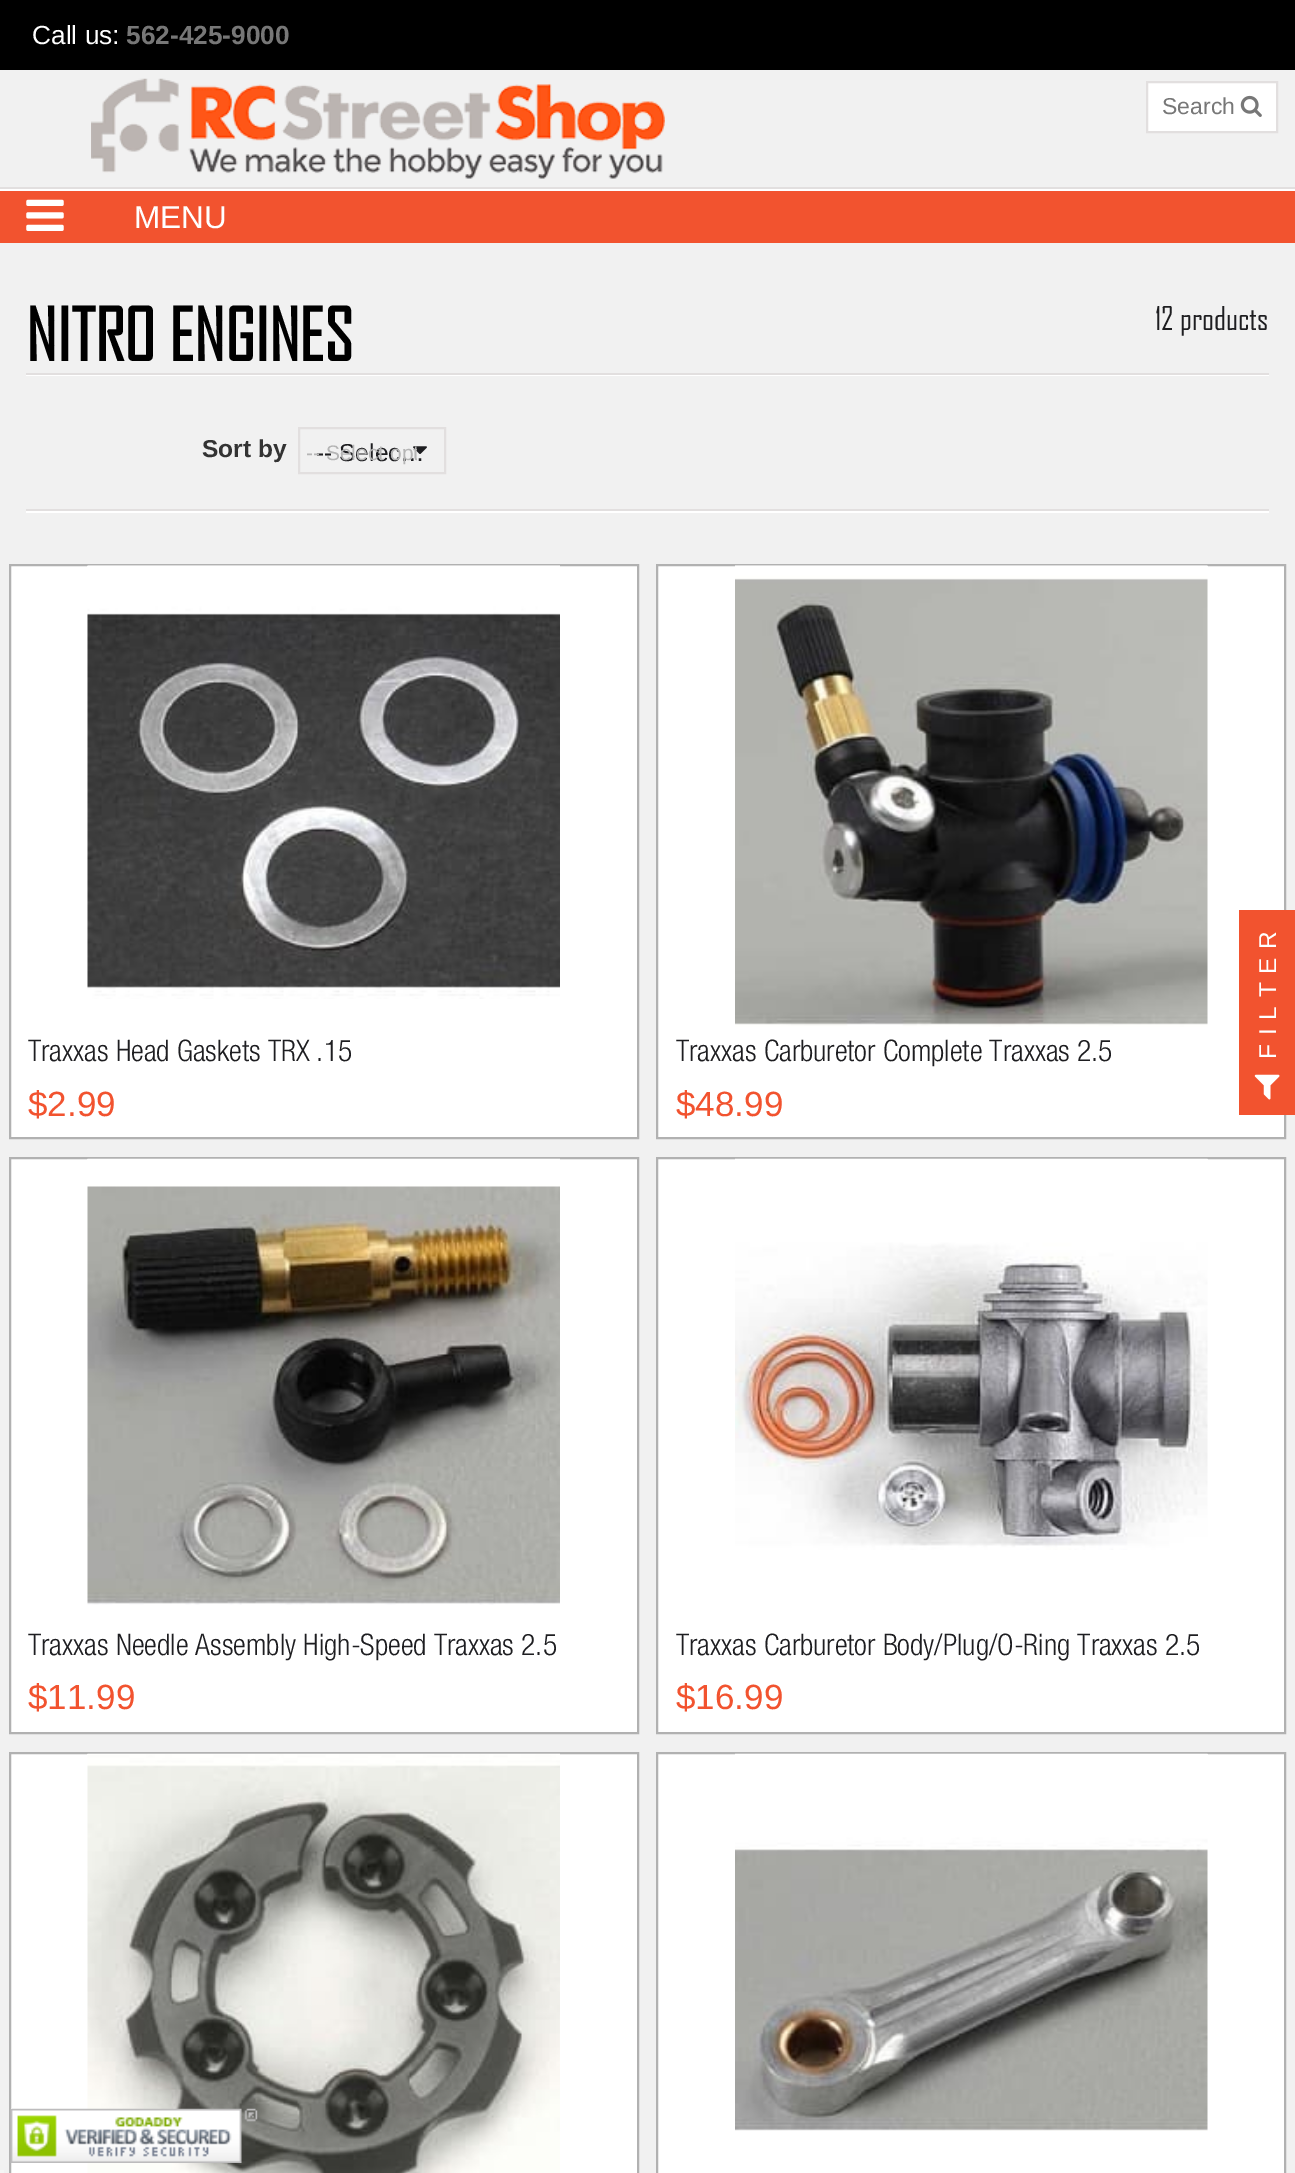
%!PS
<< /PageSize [1295 2173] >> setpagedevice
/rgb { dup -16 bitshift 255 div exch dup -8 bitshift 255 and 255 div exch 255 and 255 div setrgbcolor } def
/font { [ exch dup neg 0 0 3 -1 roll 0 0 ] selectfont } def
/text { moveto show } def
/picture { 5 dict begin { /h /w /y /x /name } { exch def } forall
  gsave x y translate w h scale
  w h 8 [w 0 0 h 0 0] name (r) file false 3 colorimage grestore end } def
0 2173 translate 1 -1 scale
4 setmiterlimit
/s1 { /LiberationSans-Regular 26.25 font 16#FFFFFF rgb } def
/s2 { /LiberationSans-Bold 26.25 font 16#777777 rgb } def
/s3 { /LiberationSans-Regular 23 font 16#777777 rgb } def
/s4 { /LiberationSans-Regular 31.5 font 16#FFFFFF rgb } def
/s5 { /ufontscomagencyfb-Bold 70 font 16#000000 rgb } def
/s6 { /ufontscomagencyfb-Regular 31.5 font 16#1E1E21 rgb } def
/s7 { /LiberationSans-Bold 24.5 font 16#333333 rgb } def
/s8 { /LiberationSans-Regular 24.5 font 16#1E1E21 rgb } def
/s9 { /LiberationSans-Regular 21 font 16#B5B5B5 rgb } def
/s10 { /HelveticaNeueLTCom-Light 29.75 font 16#1E1E21 rgb } def
/s11 { /LiberationSans-Regular 35 font 16#F2532F rgb } def
16#F1F1F1 rgb
0 0 1295 2173 rectfill
16#FFFFFF rgb
0 189 1295 2 rectfill
16#E2DFDF rgb
0 187 1295 2 rectfill
16#000000 rgb
0 0 1295 70 rectfill
s1
(Call us:) 32 44 text
s2
(562-425-9000) 126 44 text
(pic1.raw) 91 78 574 101 picture
16#FFFFFF rgb
1147 82 moveto 1277 82 lineto 1277 132 lineto 1147 132 lineto closepath gsave fill grestore
16#E2DFDF rgb
2 setlinewidth
stroke
s3
(Search) 1162 114 text
(pic2.raw) 1240 95 22 22 picture
16#F2532F rgb
0 191 1295 52 rectfill
(pic3.raw) 26 199 38 32 picture
s4
(MENU) 134 228 text
26 298 moveto 26 376 lineto 1269 376 lineto 1269 298 lineto 1269 374 lineto 26 374 lineto closepath fill
16#E2DFDF rgb
26 373 1243 2 rectfill
s5
(NITRO ENGINES) 26 361 text
s6
(12 products) 1155 330 text
16#FFFFFF rgb
26 376 moveto 26 513 lineto 1269 513 lineto 1269 376 lineto 1269 511 lineto 26 511 lineto closepath fill
16#E2DFDF rgb
26 509 1243 2 rectfill
s7
(Sort by) 202 457 text
16#E2DFDF rgb
299 428 146 45 rectstroke
(pic4.raw) 413 446 14 8 picture
s8
(-- Selec…) 316 461 text
gsave
306 439 111 28 rectclip
s9
(-- Select opt) 306 460 text
grestore
16#FFFFFF rgb
10 565 moveto 638 565 lineto 638 1138 lineto 10 1138 lineto closepath gsave fill grestore
16#B1B1B1 rgb
stroke
(pic5.raw) 87 565 473 434 picture
s10
(Traxxas Head Gaskets TRX .15) 28 1061 text
s11
($2.99) 28 1116 text
16#FFFFFF rgb
657 565 moveto 1285 565 lineto 1285 1138 lineto 657 1138 lineto closepath gsave fill grestore
16#B1B1B1 rgb
stroke
(pic6.raw) 735 565 473 462 picture
s10
(Traxxas Carburetor Complete Traxxas 2.5) 676 1061 text
s11
($48.99) 676 1116 text
16#FFFFFF rgb
10 1158 moveto 638 1158 lineto 638 1733 lineto 10 1733 lineto closepath gsave fill grestore
16#B1B1B1 rgb
stroke
(pic7.raw) 87 1158 473 447 picture
s10
(Traxxas Needle Assembly High-Speed Traxxas 2.5) 28 1655 text
s11
($11.99) 28 1709 text
16#FFFFFF rgb
657 1158 moveto 1285 1158 lineto 1285 1733 lineto 657 1733 lineto closepath gsave fill grestore
16#B1B1B1 rgb
stroke
(pic8.raw) 735 1158 473 392 picture
s10
(Traxxas Carburetor Body/Plug/O-Ring Traxxas 2.5) 676 1655 text
s11
($16.99) 676 1709 text
16#FFFFFF rgb
10 1753 moveto 638 1753 lineto 638 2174 lineto 10 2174 lineto closepath gsave fill grestore
16#B1B1B1 rgb
stroke
(pic9.raw) 87 1753 473 420 picture
16#FFFFFF rgb
657 1753 moveto 1285 1753 lineto 1285 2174 lineto 657 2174 lineto closepath gsave fill grestore
16#B1B1B1 rgb
stroke
(pic10.raw) 735 1753 473 378 picture
16#F2532F rgb
1239 910 56 205 rectfill
/LiberationSans-Regular 24.5 font
16#FFFFFF rgb
gsave 1276 1059 translate -90 rotate 0 0 moveto 8.75 0 (FILTER) ashow grestore
(pic11.raw) 1254 1074 26 26 picture
(pic12.raw) 10 2108 248 55 picture
16#F5F5F5 rgb
0 2170 4 3 rectfill
showpage
